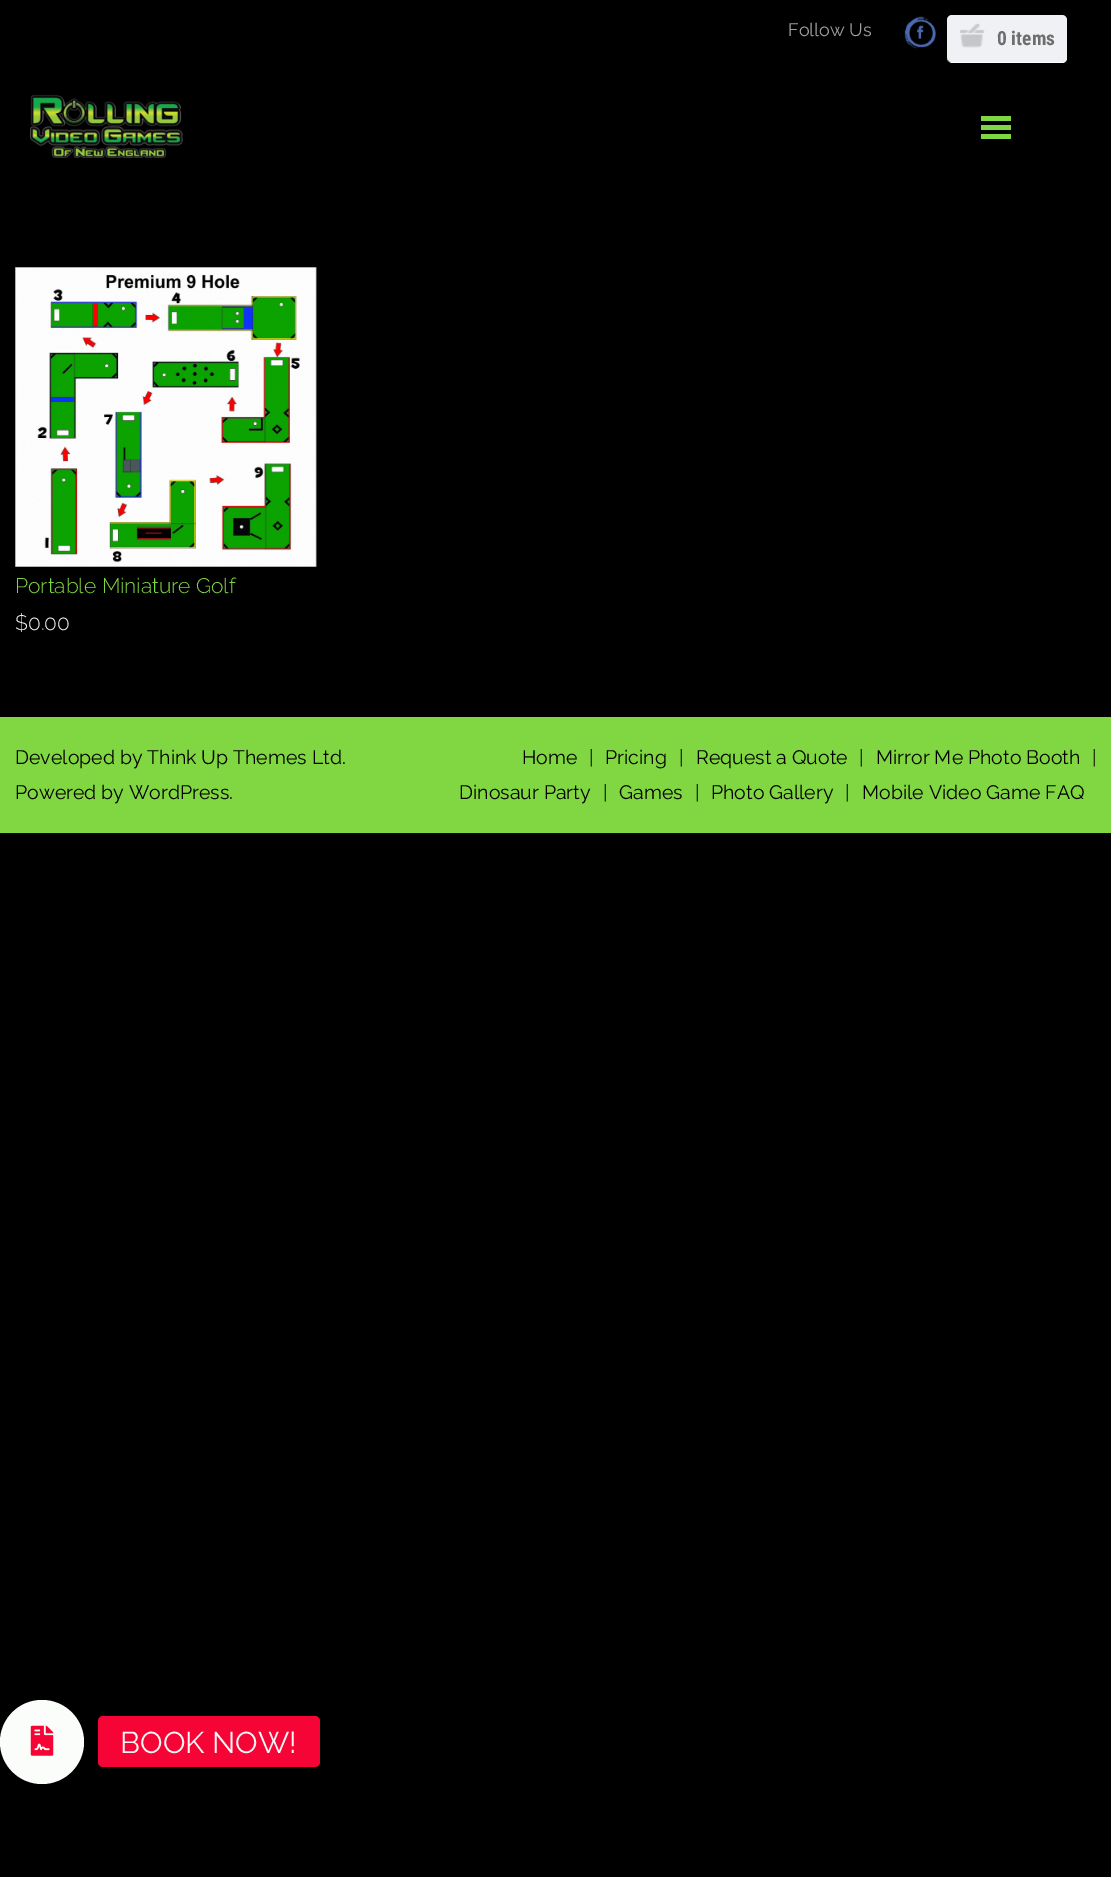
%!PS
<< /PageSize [1111 1877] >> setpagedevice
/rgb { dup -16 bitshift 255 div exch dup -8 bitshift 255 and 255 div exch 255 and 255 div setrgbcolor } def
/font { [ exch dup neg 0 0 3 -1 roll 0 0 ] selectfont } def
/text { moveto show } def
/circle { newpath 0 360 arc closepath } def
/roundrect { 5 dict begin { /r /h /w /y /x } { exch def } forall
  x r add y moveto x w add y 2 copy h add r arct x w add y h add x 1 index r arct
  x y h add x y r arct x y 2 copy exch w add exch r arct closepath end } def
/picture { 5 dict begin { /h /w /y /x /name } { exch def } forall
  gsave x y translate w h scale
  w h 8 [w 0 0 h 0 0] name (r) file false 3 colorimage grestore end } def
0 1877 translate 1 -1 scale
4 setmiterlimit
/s1 { /Raleway-Regular 18 font 16#A1A1A1 rgb } def
/s2 { /RobotoCondensed-Bold 19.5 font 16#6E6E6E rgb } def
/s3 { /Raleway-Light 21 font 16#81D742 rgb } def
/s4 { /Raleway-Light 21 font 16#F7F7F7 rgb } def
/s5 { /Raleway-Regular 19.5 font 16#000000 rgb } def
/s6 { /Raleway-Regular 30 font 16#F7F7F7 rgb } def
16#000000 rgb
0 0 1111 1877 rectfill
s1
(Follow Us) 788 36 text
(pic1.raw) 904 16 32 33 picture
(pic2.raw) 30 94 153 64 picture
16#81D742 rgb
981 116 30 5 rectfill
981 125 30 5 rectfill
981 134 30 5 rectfill
16#FFFFFF rgb
947 59 moveto 948 61 950 63 952 63 curveto 1062 63 lineto 1065 63 1067 61 1067 58 curveto 1067 22 lineto 1066 20 lineto 1066 57 lineto 1066 59 1064 62 1062 62 curveto 951 62 lineto 949 62 948 61 947 59 curveto closepath fill
16#EFF1F4 rgb
947 15 120 47 5 roundrect fill
(pic3.raw) 959 23 26 25 picture
s2
(0 items) 997 45 text
(pic4.raw) 15 267 302 300 picture
s3
(Portable Miniature Golf) 15 593 text
s4
($0.00) 15 630 text
16#81D742 rgb
0 717 1111 116 rectfill
s5
(Developed by Think Up Themes Ltd.) 15 764 text
(Powered by WordPress.) 15 799 text
(Home) 522 764 text
(|) 589 764 text
(Pricing) 605 764 text
(|) 679 764 text
(Request a Quote) 696 764 text
(|) 859 764 text
(Mirror Me Photo Booth) 876 764 text
(|) 1092 764 text
(Dinosaur Party) 459 799 text
(|) 603 799 text
(Games) 619 799 text
(|) 695 799 text
(Photo Gallery) 711 799 text
(|) 845 799 text
(Mobile Video Game FAQ) 862 799 text
16#FBFDFB rgb
42 1742 42 circle fill
(pic5.raw) 30 1725 24 31 picture
16#F60435 rgb
98 1716 222 51 5 roundrect fill
s6
(BOOK NOW!) 120 1753 text
showpage
